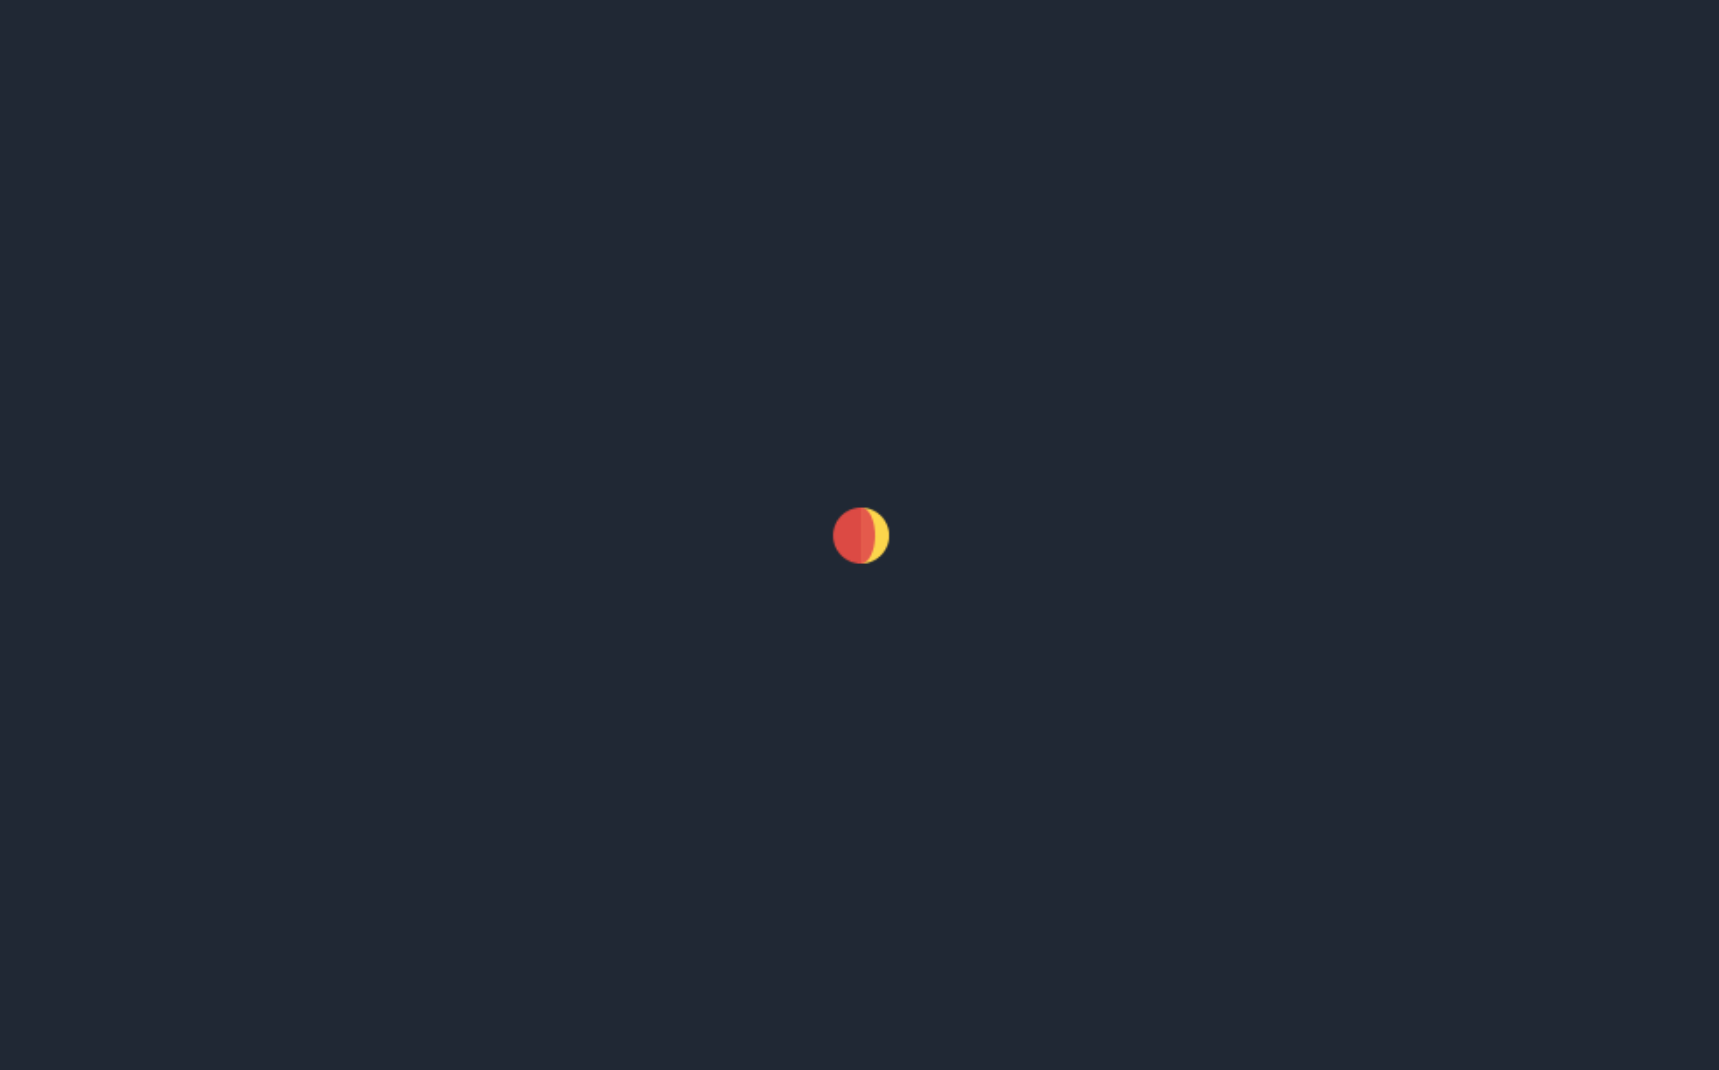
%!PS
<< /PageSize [1719 1070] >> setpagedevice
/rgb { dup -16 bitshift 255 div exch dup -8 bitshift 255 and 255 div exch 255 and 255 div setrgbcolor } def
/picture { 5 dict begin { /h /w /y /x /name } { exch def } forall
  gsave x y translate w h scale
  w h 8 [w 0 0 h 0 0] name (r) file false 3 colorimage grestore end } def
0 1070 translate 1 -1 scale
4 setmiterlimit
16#202834 rgb
0 0 1719 1070 rectfill
(pic1.raw) 832 507 58 57 picture
showpage
